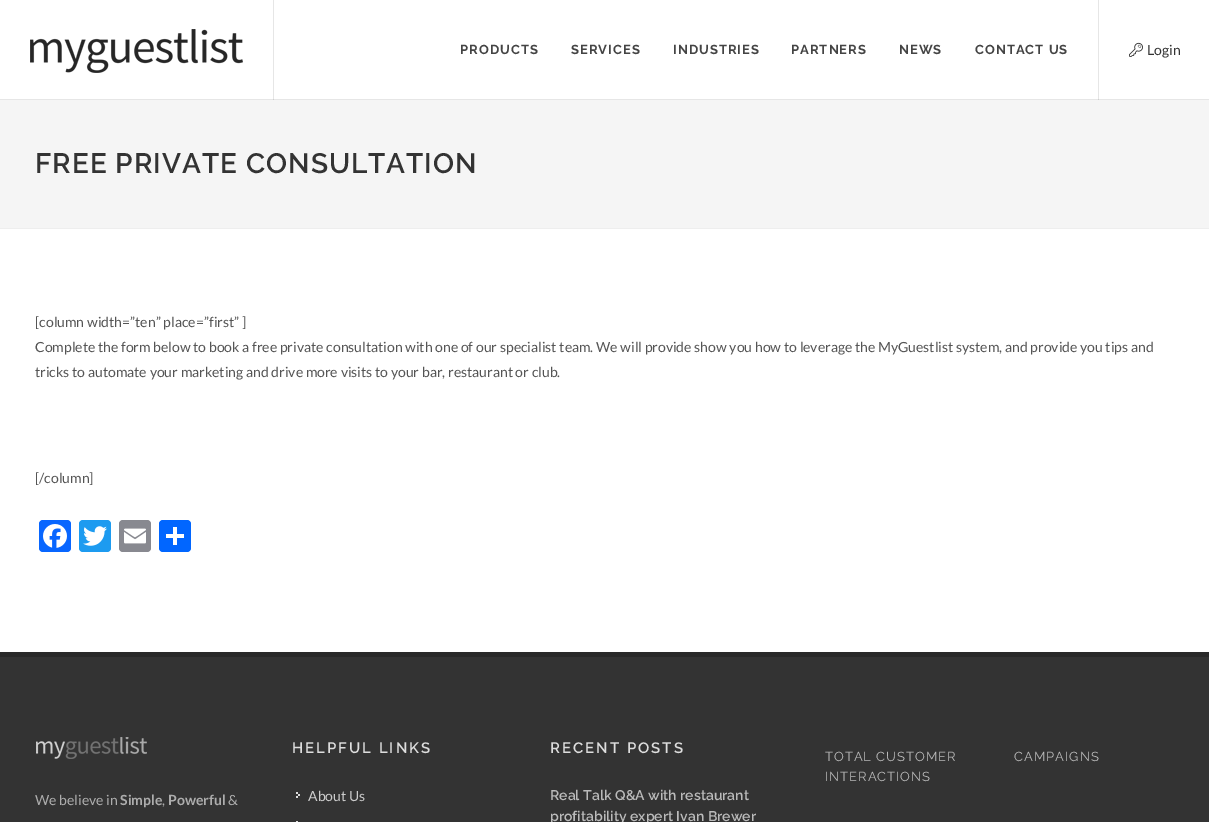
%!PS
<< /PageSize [1209 822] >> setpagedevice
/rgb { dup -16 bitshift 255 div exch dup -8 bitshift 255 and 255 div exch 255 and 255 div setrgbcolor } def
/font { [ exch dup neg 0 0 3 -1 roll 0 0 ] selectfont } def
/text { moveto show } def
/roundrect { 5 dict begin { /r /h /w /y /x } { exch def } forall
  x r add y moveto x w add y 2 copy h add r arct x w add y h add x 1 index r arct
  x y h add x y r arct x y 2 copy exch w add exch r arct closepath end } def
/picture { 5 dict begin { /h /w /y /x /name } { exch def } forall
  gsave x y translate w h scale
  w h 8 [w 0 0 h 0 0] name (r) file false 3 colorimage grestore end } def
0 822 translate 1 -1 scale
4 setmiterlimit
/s1 { /Lato-Regular 14 font 16#333333 rgb } def
/s2 { /Lato-Regular 14 font 16#555555 rgb } def
/s3 { /Lato-Regular 14 font 16#ADADAD rgb } def
/s4 { /Lato-Bold 14 font 16#ADADAD rgb } def
/s5 { /Lato-Regular 14 font 16#CCCCCC rgb } def
/s6 { /Raleway-SemiBold 14 font 16#BBBBBB rgb } def
16#FFFFFF rgb
0 0 1209 822 rectfill
16#E6E6E6 rgb
273 0 1 100 rectfill
1098 0 1 100 rectfill
0 99 1209 1 rectfill
16#CFCFCF rgb
273 99 1 1 rectfill
1098 99 1 1 rectfill
(pic1.raw) 30 29 213 44 picture
/Raleway-Bold 13 font
16#444444 rgb
460 54 moveto 1 0 (PRODUCTS) ashow
571 54 moveto 1 0 (SERVICES) ashow
673 54 moveto 1 0 (INDUSTRIES) ashow
791 54 moveto 1 0 (PARTNERS) ashow
899 54 moveto 1 0 (NEWS) ashow
975 54 moveto 1 0 (CONTACT US) ashow
(pic2.raw) 1129 42 14 15 picture
s1
(Login) 1147 55 text
16#F5F5F5 rgb
0 100 1209 128 rectfill
16#EEEEEE rgb
0 228 1209 1 rectfill
/Raleway-SemiBold 28 font
16#333333 rgb
35 173 moveto 1 0 (FREE PRIVATE CONSULTATION) ashow
s2
([column width=”ten” place=”first” ]) 35 327 text
(Complete the form below to book a free private consultation with one of our specialist team. We will provide show you how to leverage the MyGuestlist system, and provide you tips and) 35 352 text
(tricks to automate your marketing and drive more visits to your bar, restaurant or club.) 35 377 text
([/column]) 35 483 text
16#0866FF rgb
39 520 32 32 4 roundrect fill
(pic3.raw) 43 524 24 24 picture
16#1D9BF0 rgb
79 520 32 32 4 roundrect fill
(pic4.raw) 83 526 24 20 picture
16#888990 rgb
119 520 32 32 4 roundrect fill
(pic5.raw) 124 528 22 16 picture
16#0166FF rgb
159 520 32 32 4 roundrect fill
16#FFFFFF rgb
173 527 4 18 rectfill
166 534 18 4 rectfill
16#333333 rgb
0 657 1209 165 rectfill
16#292929 rgb
0 652 1209 5 rectfill
(pic6.raw) 36 737 111 22 picture
s3
(We believe in) 35 805 text
s4
(Simple) 120 805 text
s3
(,) 162 805 text
s4
(Powerful) 168 805 text
s3
(&) 228 805 text
/Raleway-SemiBold 15 font
16#DDDDDD rgb
292 753 moveto 2 0 (HELPFUL LINKS) ashow
(pic7.raw) 296 792 4 6 picture
s5
(About Us) 308 801 text
16#DDDDDD rgb
296 821 2 1 rectfill
/Raleway-SemiBold 15 font
550 753 moveto 2 0 (RECENT POSTS) ashow
s6
(Real Talk Q&A with restaurant) 550 800 text
(profitability expert Ivan Brewer) 550 821 text
/Raleway-Regular 13 font
825 761 moveto 1 0 (TOTAL CUSTOMER) ashow
825 781 moveto 1 0 (INTERACTIONS) ashow
1014 761 moveto 1 0 (CAMPAIGNS) ashow
showpage
